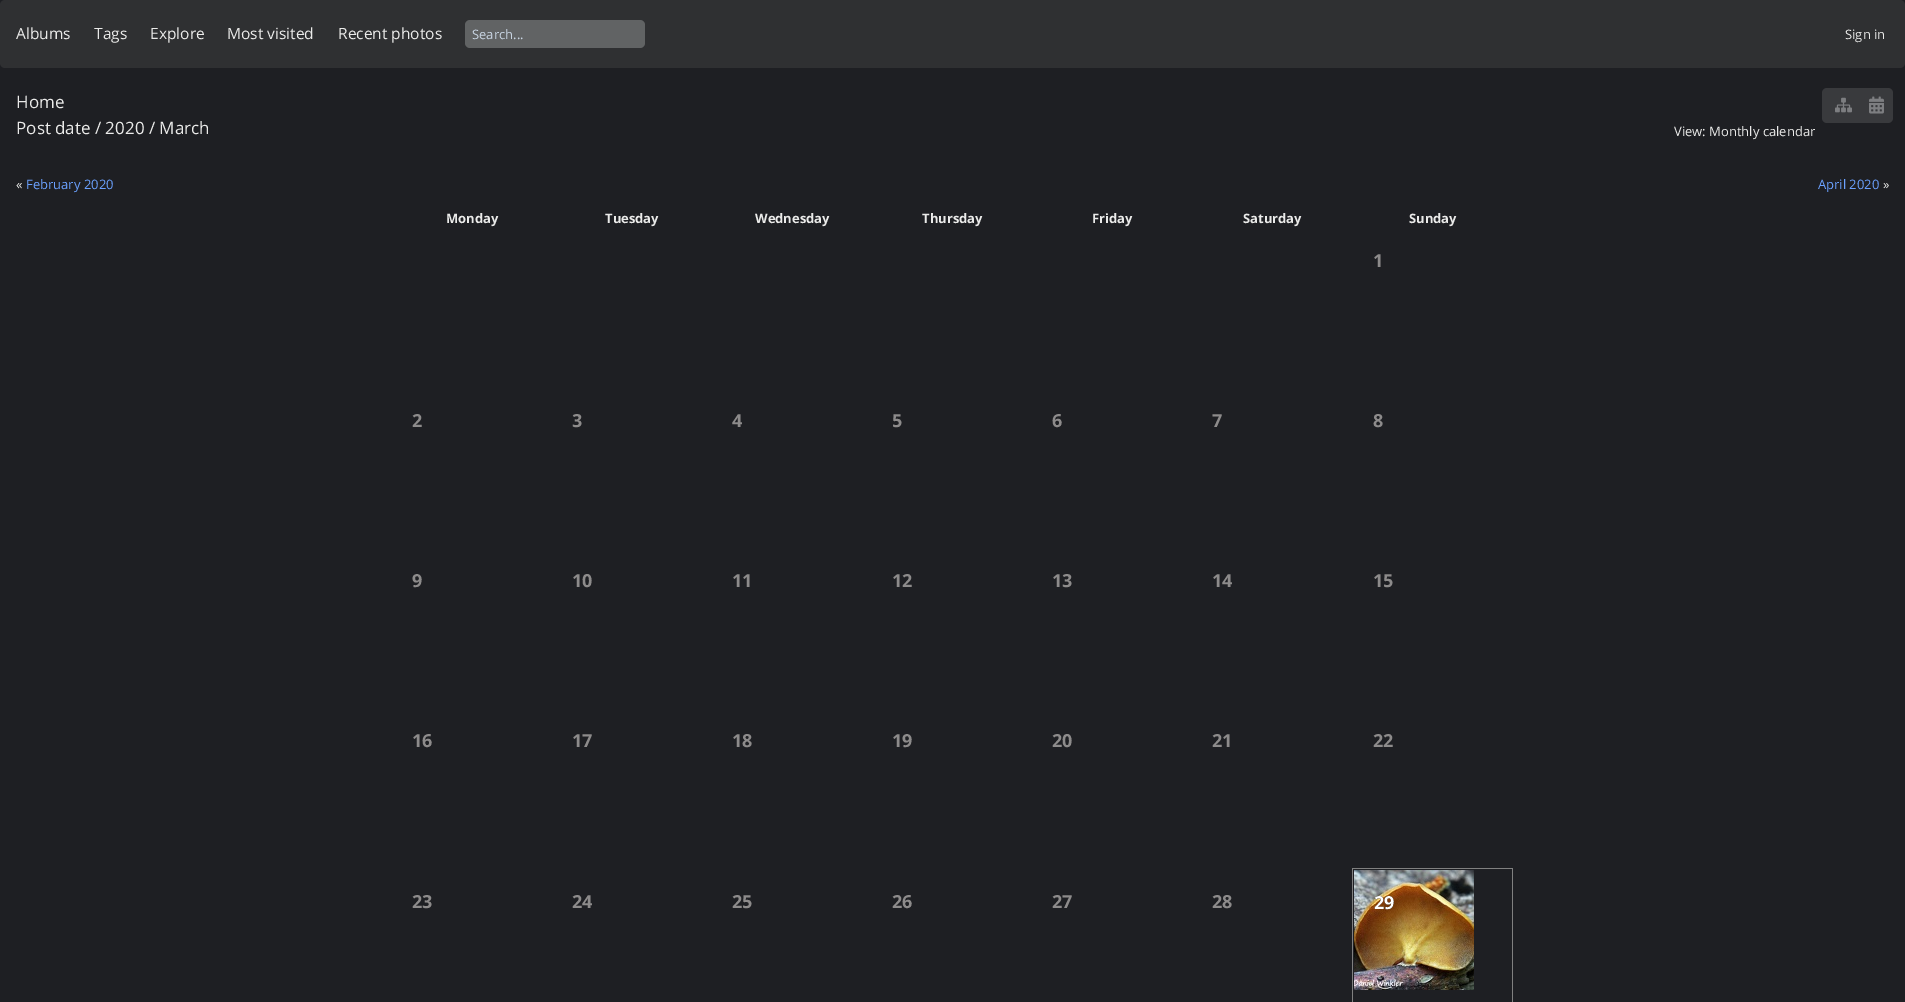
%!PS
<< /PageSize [1905 1002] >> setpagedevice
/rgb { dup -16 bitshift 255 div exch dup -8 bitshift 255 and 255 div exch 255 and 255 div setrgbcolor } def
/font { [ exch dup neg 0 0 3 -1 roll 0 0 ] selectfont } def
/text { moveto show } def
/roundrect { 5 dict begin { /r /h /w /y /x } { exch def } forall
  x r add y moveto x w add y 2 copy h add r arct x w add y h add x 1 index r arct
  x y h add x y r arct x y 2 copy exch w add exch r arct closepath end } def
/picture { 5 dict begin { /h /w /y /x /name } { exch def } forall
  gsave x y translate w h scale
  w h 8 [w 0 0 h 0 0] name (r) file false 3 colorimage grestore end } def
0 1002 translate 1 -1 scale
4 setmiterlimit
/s1 { /OpenSans-Regular 15.5 font 16#EAEAE9 rgb } def
/s2 { /OpenSans-Regular 13 font 16#C7D3E1 rgb } def
/s3 { /OpenSans-Regular 13 font 16#EAEAE9 rgb } def
/s4 { /OpenSans-Regular 17 font 16#EAEAE9 rgb } def
/s5 { /OpenSans-Regular 13 font 16#6BA1FF rgb } def
/s6 { /OpenSans-Bold 13 font 16#EAEAE9 rgb } def
/s7 { /OpenSans-Bold 18 font 16#8D8B8B rgb } def
/s8 { /OpenSans-Bold 18 font 16#000000 rgb } def
/s9 { /OpenSans-Bold 18 font 16#FFFFFF rgb } def
16#1E1F23 rgb
0 0 1905 1002 rectfill
16#2F3032 rgb
0 0 1905 68 5 roundrect fill
s1
(Albums) 16 39 text
(Tags) 94 39 text
(Explore) 150 39 text
(Most visited) 227 39 text
(Recent photos) 338 39 text
16#616364 rgb
465 20 180 28 5 roundrect fill
s2
(Search...) 472 39 text
s3
(Sign in) 1845 39 text
s4
(Home) 16 108 text
16#393A3D rgb
1822 88 71 35 5 roundrect fill
(pic1.raw) 1835 97 17 16 picture
(pic2.raw) 1869 96 15 18 picture
s4
(Post date / 2020 / March) 16 134 text
s3
(View: Monthly calendar) 1674 136 text
(«) 16 189 text
s5
(February 2020) 26 189 text
(April 2020) 1818 189 text
s3
(») 1883 189 text
s6
(Monday) 446 223 text
(Tuesday) 605 223 text
(Wednesday) 755 223 text
(Thursday) 922 223 text
(Friday) 1092 223 text
(Saturday) 1243 223 text
(Sunday) 1409 223 text
s7
(1) 1373 267 text
(2) 412 427 text
(3) 572 427 text
(4) 732 427 text
(5) 892 427 text
(6) 1052 427 text
(7) 1212 427 text
(8) 1373 427 text
(9) 412 587 text
(10) 572 587 text
(11) 732 587 text
(12) 892 587 text
(13) 1052 587 text
(14) 1212 587 text
(15) 1373 587 text
(16) 412 747 text
(17) 572 747 text
(18) 732 747 text
(19) 892 747 text
(20) 1052 747 text
(21) 1212 747 text
(22) 1373 747 text
(23) 412 908 text
(24) 572 908 text
(25) 732 908 text
(26) 892 908 text
(27) 1052 908 text
(28) 1212 908 text
16#808080 rgb
1352 868 161 1 rectfill
1512 868 1 134 rectfill
1352 868 1 134 rectfill
(pic3.raw) 1354 870 120 120 picture
s8
(29) 1374 909 text
s9
(29) 1374 909 text
showpage
